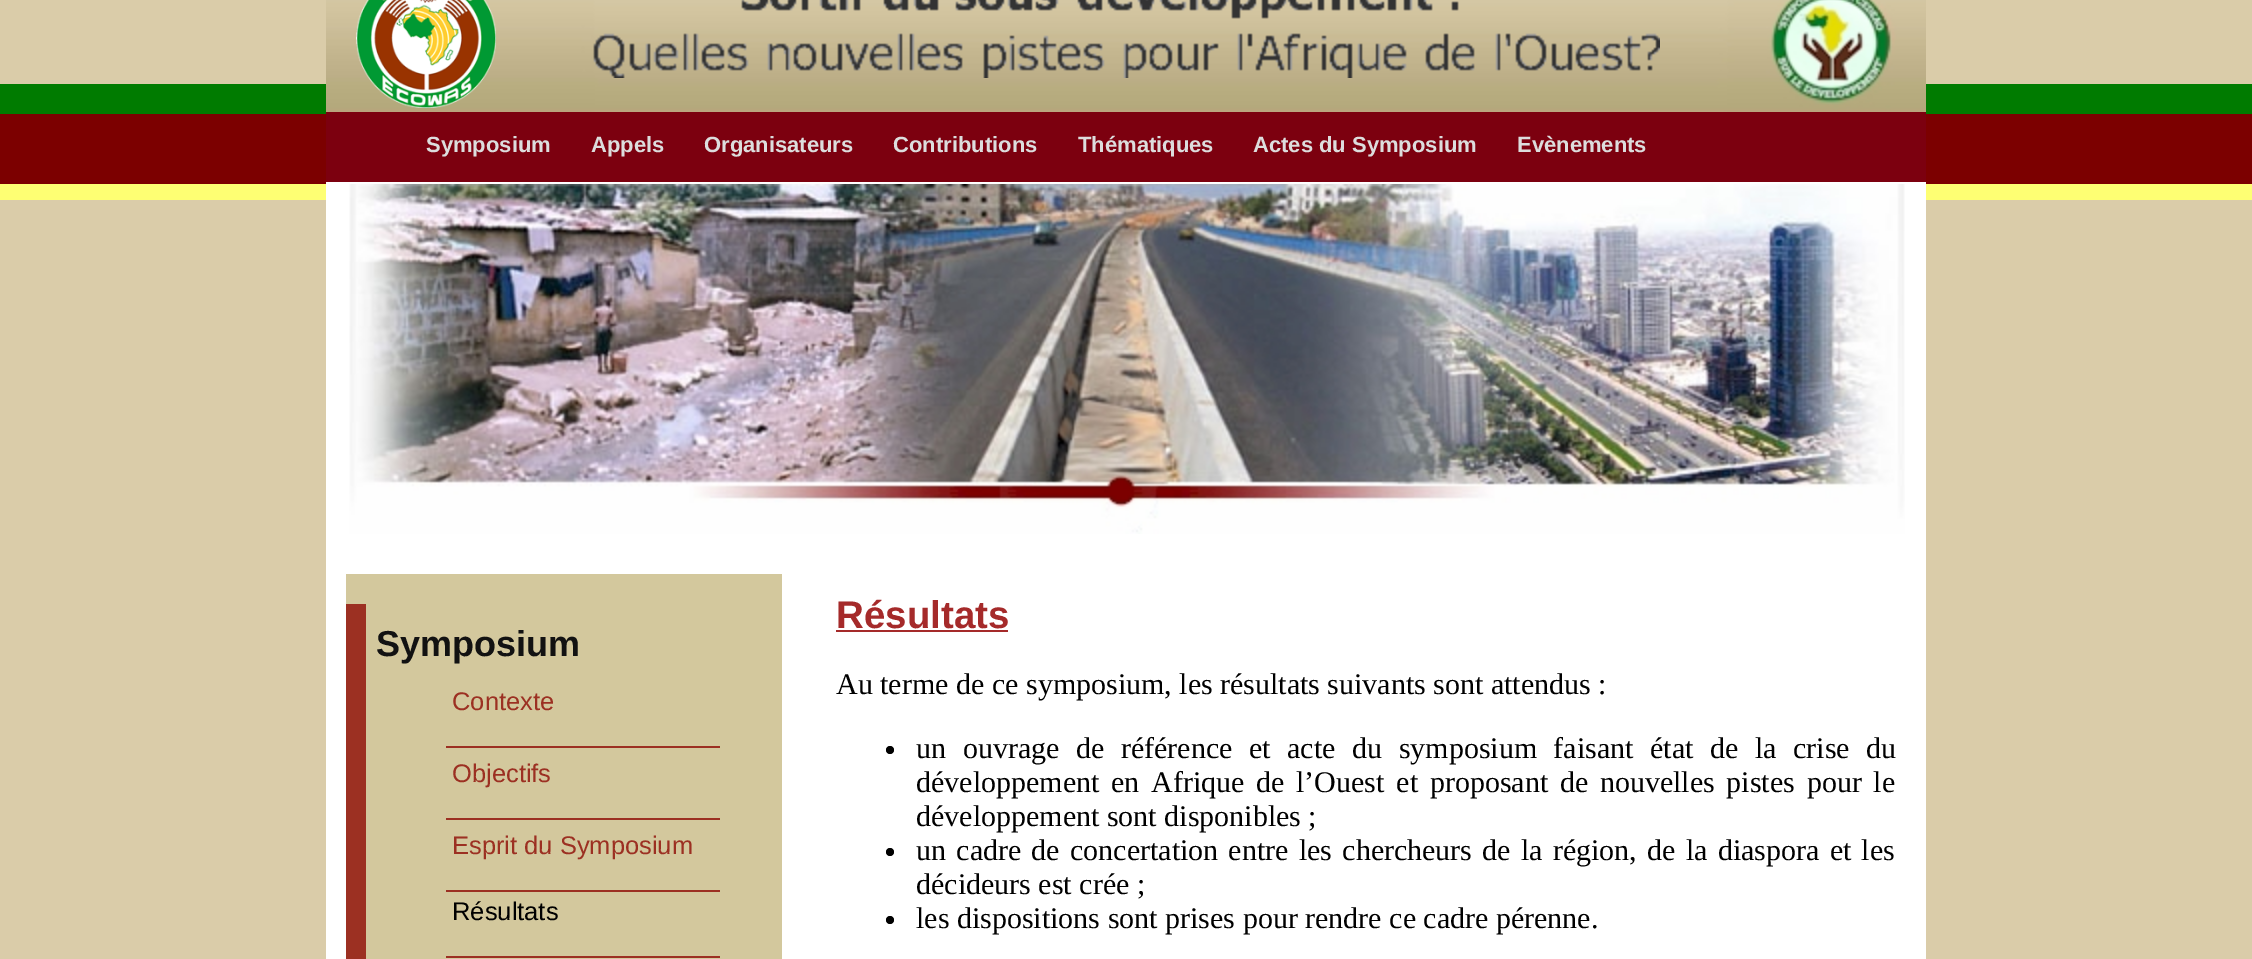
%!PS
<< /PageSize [2252 959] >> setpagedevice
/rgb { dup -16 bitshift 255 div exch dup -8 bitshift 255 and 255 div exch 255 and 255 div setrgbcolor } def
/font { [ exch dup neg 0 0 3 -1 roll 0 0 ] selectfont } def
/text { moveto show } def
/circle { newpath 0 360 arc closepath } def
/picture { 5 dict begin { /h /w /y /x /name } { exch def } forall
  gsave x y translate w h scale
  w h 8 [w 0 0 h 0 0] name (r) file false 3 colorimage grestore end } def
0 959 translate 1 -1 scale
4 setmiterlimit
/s1 { /LiberationSans-Bold 22 font 16#DDDDDD rgb } def
/s2 { /LiberationSans-Bold 36 font 16#121212 rgb } def
/s3 { /LiberationSans-Regular 25.5 font 16#9C3022 rgb } def
/s4 { /LiberationSans-Regular 25.5 font 16#000000 rgb } def
/s5 { /LiberationSans-Bold 38.5 font 16#A52A2A rgb } def
/s6 { /LiberationSerif-Regular 30 font 16#000000 rgb } def
16#DACCA9 rgb
0 0 2252 959 rectfill
16#7C0000 rgb
0 114 2252 70 rectfill
16#007B00 rgb
0 84 2252 30 rectfill
16#FEFF73 rgb
0 184 2252 16 rectfill
16#FFFFFF rgb
326 182 1600 777 rectfill
(pic1.raw) 326 0 1600 112 picture
(pic2.raw) 356 0 140 108 picture
(pic3.raw) 593 0 1067 78 picture
16#7C000F rgb
326 112 1600 70 rectfill
s1
(Symposium) 426 152 text
(Appels) 591 152 text
(Organisateurs) 704 152 text
(Contributions) 893 152 text
(Thématiques) 1078 152 text
(Actes du Symposium) 1253 152 text
(Evènements) 1517 152 text
(pic4.raw) 349 184 1556 350 picture
16#D3C89D rgb
346 574 436 30 rectfill
16#9C3022 rgb
346 604 20 355 rectfill
16#D3C89D rgb
366 604 416 355 rectfill
s2
(Symposium) 376 656 text
16#9C3022 rgb
446 746 274 2 rectfill
s3
(Contexte) 452 710 text
446 818 274 2 rectfill
(Objectifs) 452 782 text
446 890 274 2 rectfill
(Esprit du Symposium) 452 854 text
446 956 274 2 rectfill
s4
(Résultats) 452 920 text
s5
(Résultats) 836 628 text
836 630 172 2 rectfill
s6
(Au terme de ce symposium, les résultats suivants sont attendus :) 836 694 text
890 750 4 circle fill
916 758 moveto 9.1 0 32 (un ouvrage de référence et acte du symposium faisant état de la crise du) widthshow
916 792 moveto 4.25 0 32 (développement en Afrique de l’Ouest et proposant de nouvelles pistes pour le) widthshow
(développement sont disponibles ;) 916 826 text
890 852 4 circle fill
916 860 moveto 2.75 0 32 (un cadre de concertation entre les chercheurs de la région, de la diaspora et les) widthshow
(décideurs est crée ;) 916 894 text
890 920 4 circle fill
(les dispositions sont prises pour rendre ce cadre pérenne.) 916 928 text
showpage
